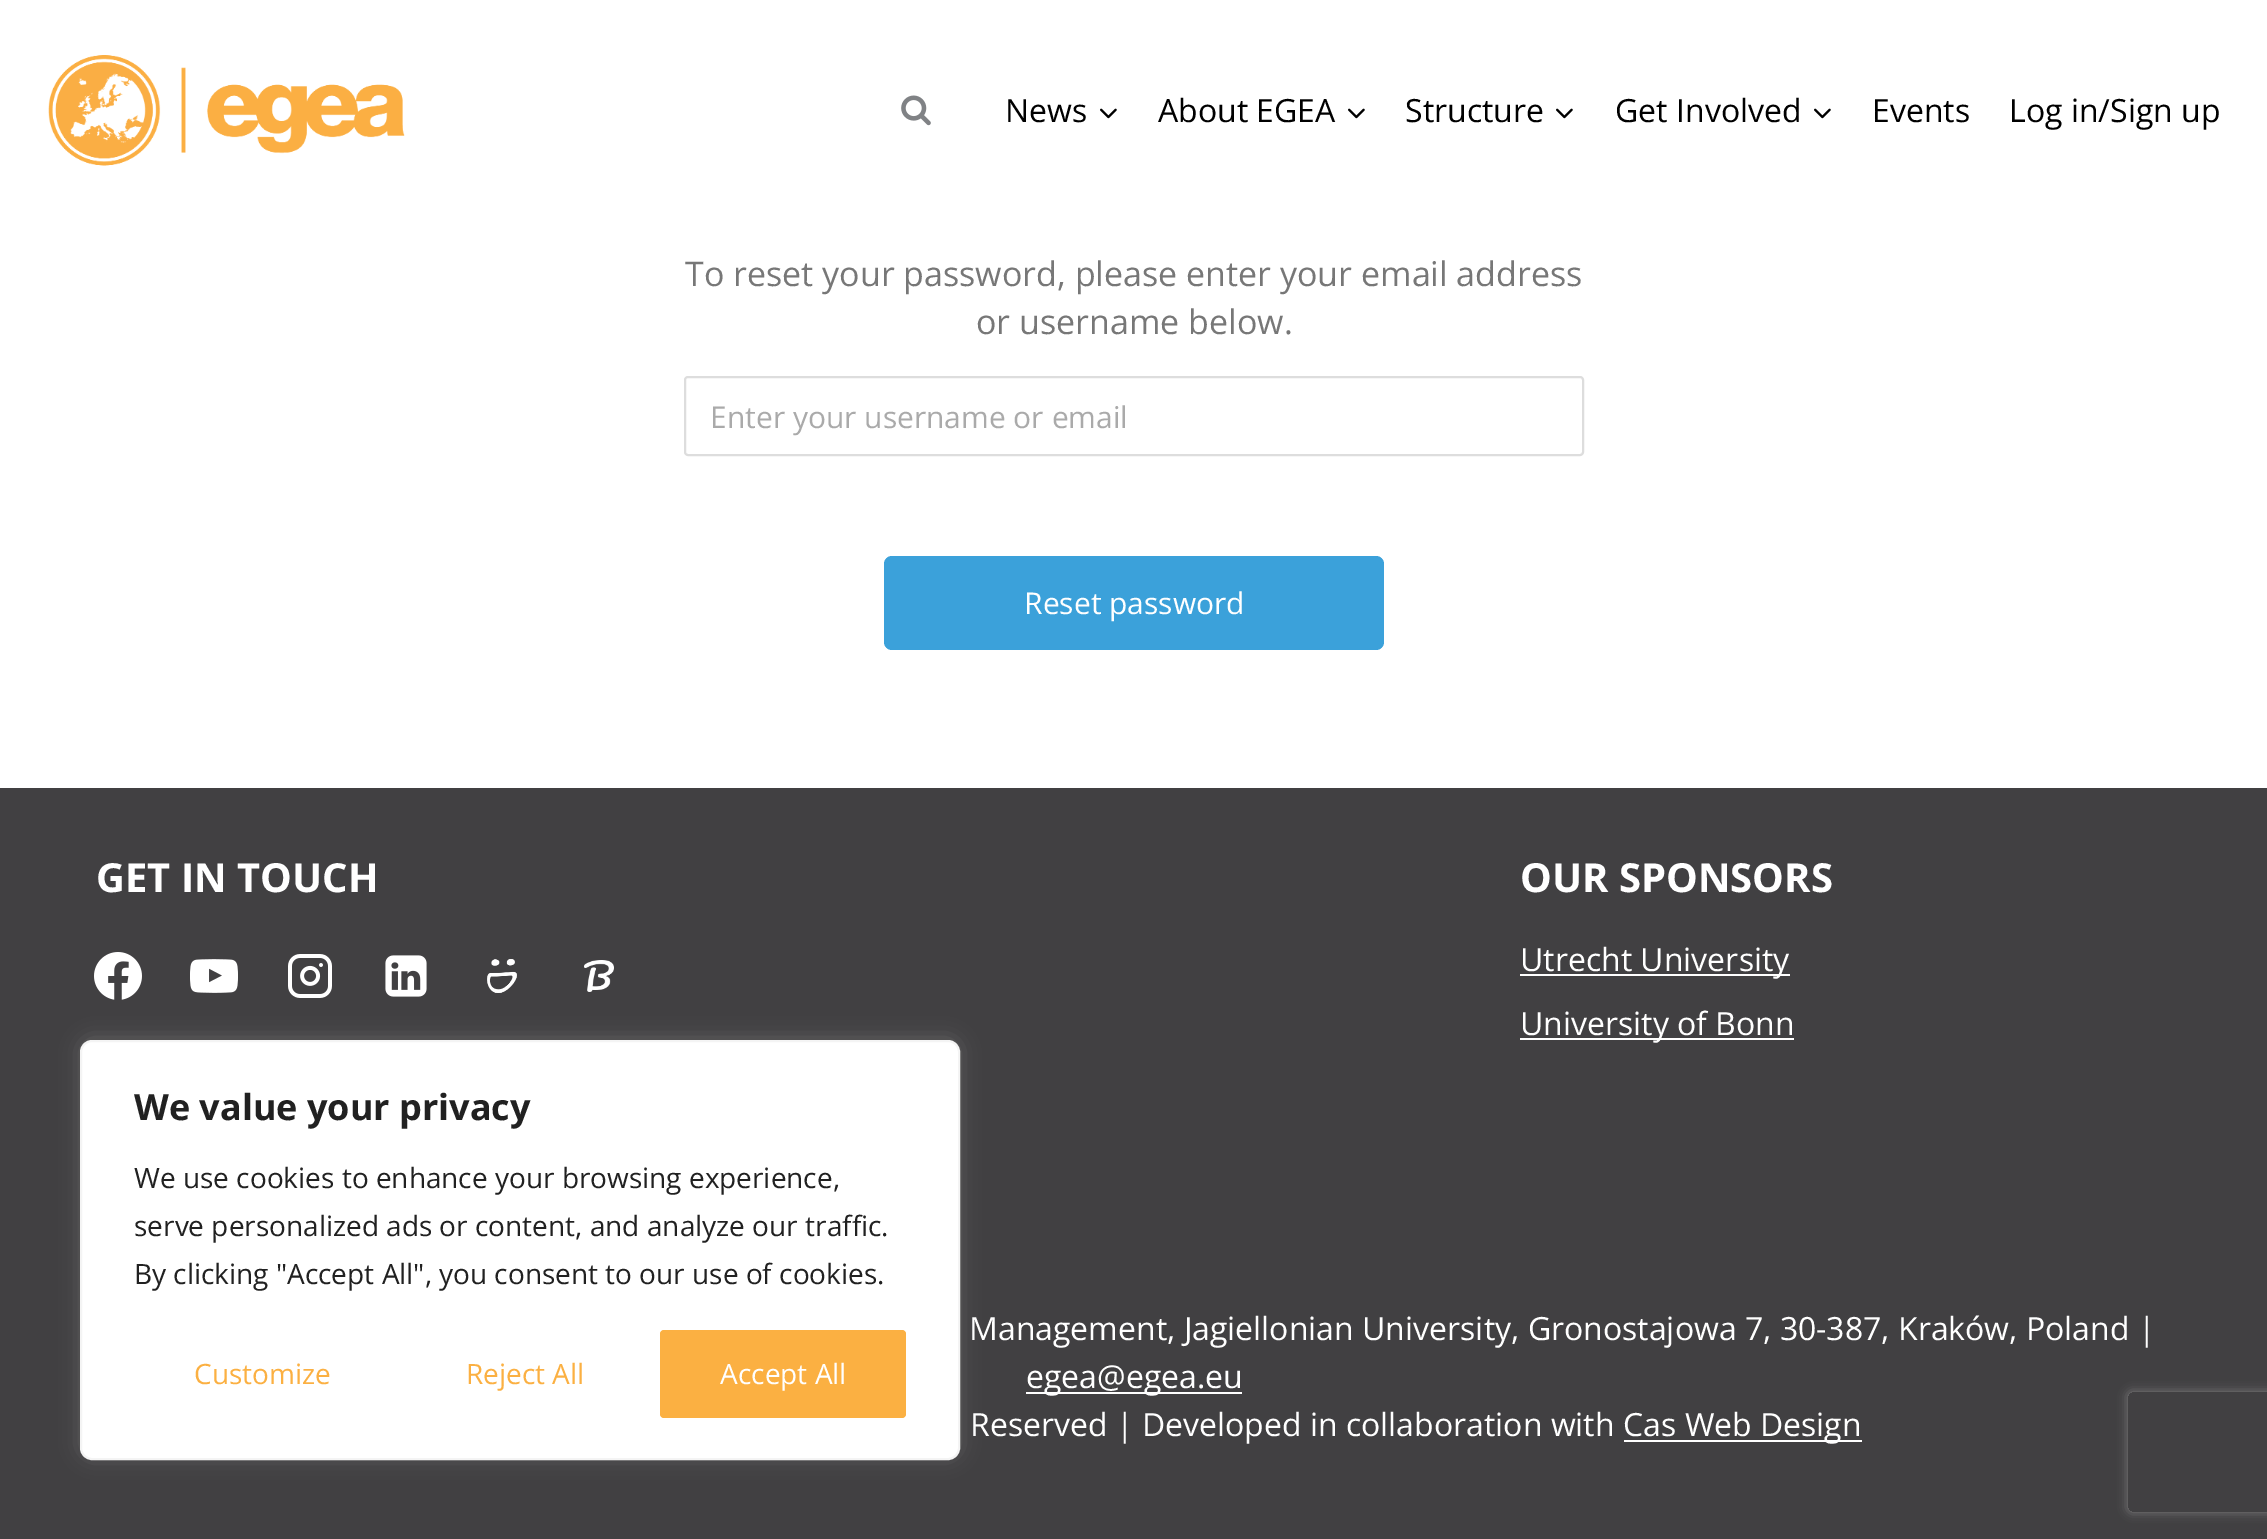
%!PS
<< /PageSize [2267 1539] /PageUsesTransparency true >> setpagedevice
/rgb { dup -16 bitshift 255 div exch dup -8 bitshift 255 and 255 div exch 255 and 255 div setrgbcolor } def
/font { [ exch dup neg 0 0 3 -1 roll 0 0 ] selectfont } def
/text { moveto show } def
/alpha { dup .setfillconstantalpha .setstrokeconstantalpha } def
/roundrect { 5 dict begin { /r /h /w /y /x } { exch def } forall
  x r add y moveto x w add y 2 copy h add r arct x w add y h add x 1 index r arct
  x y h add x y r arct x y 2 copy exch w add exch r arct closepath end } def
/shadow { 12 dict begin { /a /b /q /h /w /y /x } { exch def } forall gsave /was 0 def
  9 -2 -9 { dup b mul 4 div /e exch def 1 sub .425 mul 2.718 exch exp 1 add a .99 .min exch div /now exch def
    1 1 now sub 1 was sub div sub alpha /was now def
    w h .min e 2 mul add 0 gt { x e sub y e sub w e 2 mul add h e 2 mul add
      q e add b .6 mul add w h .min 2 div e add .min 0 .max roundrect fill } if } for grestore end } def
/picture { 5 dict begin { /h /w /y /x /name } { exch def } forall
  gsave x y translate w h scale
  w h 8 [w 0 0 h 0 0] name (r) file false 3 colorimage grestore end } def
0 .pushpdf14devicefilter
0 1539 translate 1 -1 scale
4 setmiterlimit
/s1 { /OpenSans-Regular 32 font 16#000000 rgb } def
/s2 { /OpenSans-Regular 34 font 16#777777 rgb } def
/s3 { /OpenSans-Regular 30 font 16#AAAAAA rgb } def
/s4 { /OpenSans-Regular 30 font 16#FFFFFF rgb } def
/s5 { /OpenSans-Bold 40 font 16#FFFFFF rgb } def
/s6 { /OpenSans-Regular 32 font 16#FFFFFF rgb } def
/s7 { /OpenSans-Bold 36 font 16#212121 rgb } def
/s8 { /OpenSans-Regular 28 font 16#212121 rgb } def
/s9 { /OpenSans-Regular 28 font 16#FBB042 rgb } def
/s10 { /OpenSans-Regular 28 font 16#FFFFFF rgb } def
16#FFFFFF rgb
0 0 2267 1539 rectfill
(pic1.raw) 48 55 357 111 picture
(pic2.raw) 901 95 30 31 picture
s1
(News) 1005 122 text
(pic3.raw) 1100 108 17 11 picture
(About EGEA) 1158 122 text
(pic3.raw) 1348 108 17 11 picture
(Structure) 1405 122 text
(pic3.raw) 1556 108 17 11 picture
(Get Involved) 1615 122 text
(pic3.raw) 1814 108 17 11 picture
(Events) 1872 122 text
(Log in/Sign up) 2009 122 text
s2
(To reset your password, please enter your email address) 685 286 text
(or username below.) 976 334 text
16#DDDDDD rgb
2 setlinewidth
685 377 898 78 3 roundrect stroke
s3
(Enter your username or email) 710 428 text
16#3BA1DA rgb
884 556 500 94 8 roundrect fill
s4
(Reset password) 1024 614 text
16#414042 rgb
0 788 2267 751 rectfill
s5
(GET IN TOUCH) 96 892 text
(pic4.raw) 94 952 48 48 picture
(pic5.raw) 190 959 48 34 picture
(pic6.raw) 288 954 44 44 picture
(pic7.raw) 385 955 42 42 picture
(pic8.raw) 487 959 30 34 picture
(pic9.raw) 584 960 30 32 picture
(OUR SPONSORS) 1520 892 text
1520 974 270 2 rectfill
s6
(Utrecht University) 1520 971 text
1520 1038 274 2 rectfill
(University of Bonn) 1520 1035 text
(Management, Jagiellonian University, Gronostajowa 7, 30-387, Kraków, Poland |) 969 1340 text
1026 1392 216 2 rectfill
(egea@egea.eu) 1026 1388 text
(Reserved | Developed in collaboration with) 970 1436 text
1624 1440 238 2 rectfill
(Cas Web Design) 1623 1436 text
16#ACABAB rgb
80 1038 880 420 12 10 0.3 shadow
16#FFFFFF rgb
81 1041 878 418 11 roundrect gsave fill grestore
16#F4F4F4 rgb
stroke
s7
(We value your privacy) 134 1120 text
s8
(We use cookies to enhance your browsing experience,) 134 1188 text
(serve personalized ads or content, and analyze our traffic.) 134 1236 text
(By clicking "Accept All", you consent to our use of cookies.) 134 1284 text
s9
(Customize) 194 1384 text
(Reject All) 466 1384 text
660 1330 246 88 4 roundrect fill
s10
(Accept All) 720 1384 text
gsave
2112 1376 moveto 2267 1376 lineto 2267 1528 lineto 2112 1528 lineto closepath 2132 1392 moveto 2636 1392 lineto 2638 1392 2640 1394 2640 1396 curveto 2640 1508 lineto 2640 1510 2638 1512 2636 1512 curveto 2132 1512 lineto 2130 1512 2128 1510 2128 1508 curveto 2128 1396 lineto 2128 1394 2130 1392 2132 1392 curveto closepath eoclip newpath
16#808080 rgb
2128 1392 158 120 4 5 1 shadow
grestore
.poppdf14devicefilter showpage
